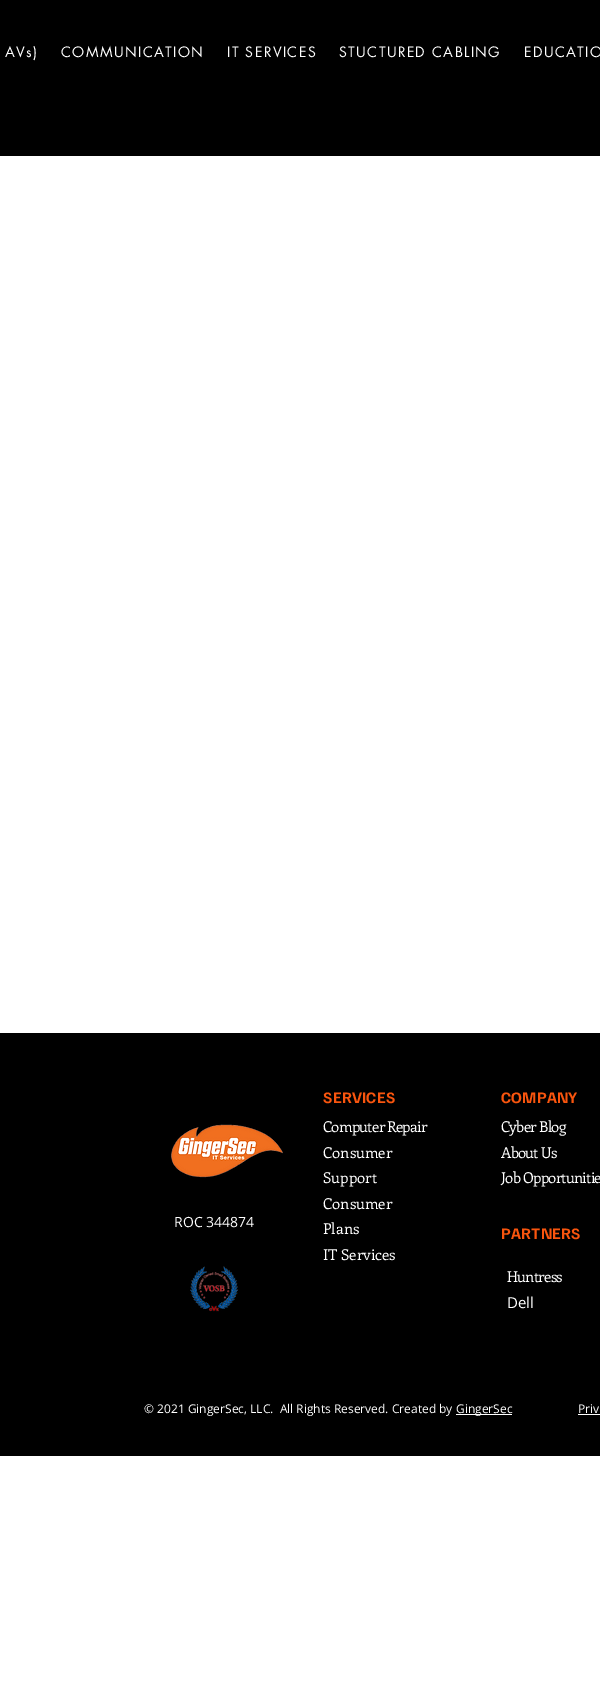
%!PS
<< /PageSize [600 1706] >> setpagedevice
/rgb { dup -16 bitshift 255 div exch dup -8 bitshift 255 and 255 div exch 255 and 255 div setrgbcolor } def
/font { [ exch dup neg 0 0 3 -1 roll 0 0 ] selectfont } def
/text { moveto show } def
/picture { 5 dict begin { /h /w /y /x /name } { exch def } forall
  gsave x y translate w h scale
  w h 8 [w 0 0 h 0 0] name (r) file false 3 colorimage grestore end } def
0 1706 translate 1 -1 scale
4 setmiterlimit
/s1 { /Enriqueta-Regular 15 font 16#FFFFFF rgb } def
/s2 { /OpenSans-Regular 14 font 16#FFFFFF rgb } def
/s3 { /OpenSans-Regular 15 font 16#FFFFFF rgb } def
/s4 { /OpenSans-Regular 12 font 16#FFFFFF rgb } def
16#FFFFFF rgb
0 0 600 1706 rectfill
16#000000 rgb
0 0 600 156 rectfill
/futura-Regular 14 font
16#FFFFFF rgb
5 57 moveto 1.4 0 (AVs\)) ashow
61 57 moveto 1.4 0 (COMMUNICATION) ashow
227 57 moveto 1.4 0 (IT SERVICES) ashow
339 57 moveto 1.4 0 (STUCTURED CABLING) ashow
524 57 moveto 1.4 0 (EDUCATIO) ashow
16#000000 rgb
0 1033 600 423 rectfill
/FamiljenGrotesk-Bold 16 font
16#F9550E rgb
323 1103 moveto 0.25 0 (SERVICES) ashow
501 1103 moveto 0.25 0 (COMPANY) ashow
(pic1.raw) 171 1124 112 54 picture
/Enriqueta-Regular 15 font
16#FFFFFF rgb
323 1132 moveto -0.75 0 (Computer Repair) ashow
(Consumer) 323 1158 text
(Support) 323 1183 text
(Consumer) 323 1209 text
(Plans) 323 1234 text
(IT Services) 323 1260 text
501 1132 moveto -0.75 0 (Cyber Blog) ashow
501 1158 moveto -0.75 0 (About Us) ashow
501 1183 moveto -0.75 0 (Job Opportunitie) ashow
s2
(ROC 344874) 174 1227 text
/FamiljenGrotesk-Bold 16 font
16#F9550E rgb
501 1239 moveto 0.25 0 (PARTNERS) ashow
(pic2.raw) 190 1266 49 46 picture
/Enriqueta-Regular 15 font
16#FFFFFF rgb
507 1282 moveto -0.75 0 (Huntress) ashow
s3
(Dell) 507 1308 text
s4
(© 2021 GingerSec, LLC.  All Rights Reserved. Created by) 144 1413 text
456 1414 56 1 rectfill
(GingerSec) 456 1413 text
(Priv) 578 1413 text
578 1414 22 1 rectfill
showpage
